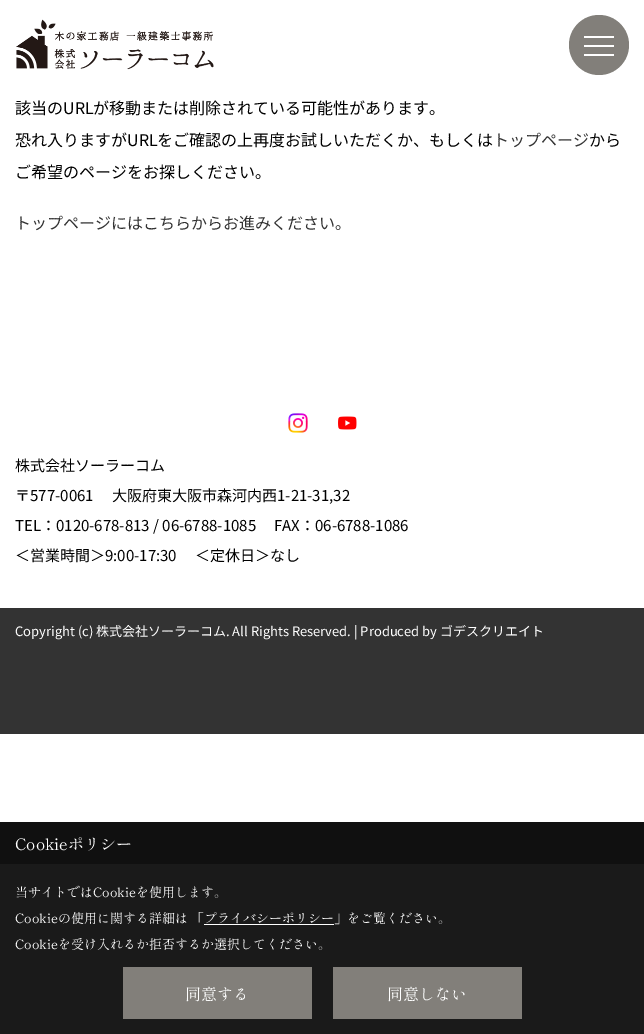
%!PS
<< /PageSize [644 1034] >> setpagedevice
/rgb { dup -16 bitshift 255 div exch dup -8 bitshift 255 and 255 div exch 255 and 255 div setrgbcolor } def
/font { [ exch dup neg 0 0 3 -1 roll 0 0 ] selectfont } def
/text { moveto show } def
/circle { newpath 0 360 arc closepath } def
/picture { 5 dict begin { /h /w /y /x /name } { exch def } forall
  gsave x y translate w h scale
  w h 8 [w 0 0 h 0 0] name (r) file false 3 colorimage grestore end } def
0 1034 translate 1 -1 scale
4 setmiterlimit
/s1 { /NotoSansJP-Thin 16 font 16#000000 rgb } def
/s2 { /NotoSansJP-Thin 16 font 16#333333 rgb } def
/s3 { /NotoSansJP-Thin 15 font 16#000000 rgb } def
/s4 { /NotoSansJP-Thin 13 font 16#FFFFFF rgb } def
/s5 { /ShipporiMincho-Regular 16 font 16#FFFFFF rgb } def
/s6 { /ShipporiMincho-Regular 13 font 16#FFFFFF rgb } def
16#FFFFFF rgb
0 0 644 1034 rectfill
(pic1.raw) 16 19 198 51 picture
16#827F7A rgb
599 45 30 circle fill
16#FFFFFF rgb
584 36 30 2 rectfill
584 45 30 2 rectfill
584 54 30 2 rectfill
s1
(該当のURLが移動または削除されている可能性があります。) 15 114 text
(恐れ入りますがURLをご確認の上再度お試しいただくか、もしくは) 15 146 text
s2
(トップページ) 493 146 text
s1
(から) 589 146 text
(ご希望のページをお探しください。) 15 178 text
s2
(トップページにはこちらからお進みください。) 15 229 text
(pic2.raw) 288 413 20 20 picture
(pic3.raw) 338 416 19 14 picture
s3
(株式会社ソーラーコム) 15 471 text
(〒577-0061) 15 501 text
(大阪府東大阪市森河内西1-21-31,32) 112 501 text
(TEL：0120-678-813 / 06-6788-1085) 15 531 text
(FAX：06-6788-1086) 274 531 text
(＜営業時間＞9:00-17:30) 15 561 text
(＜定休日＞なし) 195 561 text
16#333333 rgb
0 608 644 126 rectfill
s4
(Copyright \(c\) 株式会社ソーラーコム. All Rights Reserved. | Produced by ゴデスクリエイト) 15 636 text
16#101010 rgb
0 822 644 42 rectfill
s5
(Cookieポリシー) 15 850 text
16#1A1A1A rgb
0 864 644 170 rectfill
s6
(当サイトではCookieを使用します。) 15 897 text
(Cookieの使用に関する詳細は 「プライバシーポリシー」をご覧ください。) 15 923 text
204 924 130 1 rectfill
(Cookieを受け入れるか拒否するか選択してください。) 15 949 text
16#827F7A rgb
123 967 189 52 rectfill
s5
(同意する) 185 1000 text
16#827F7A rgb
333 967 189 52 rectfill
s5
(同意しない) 387 1000 text
showpage
